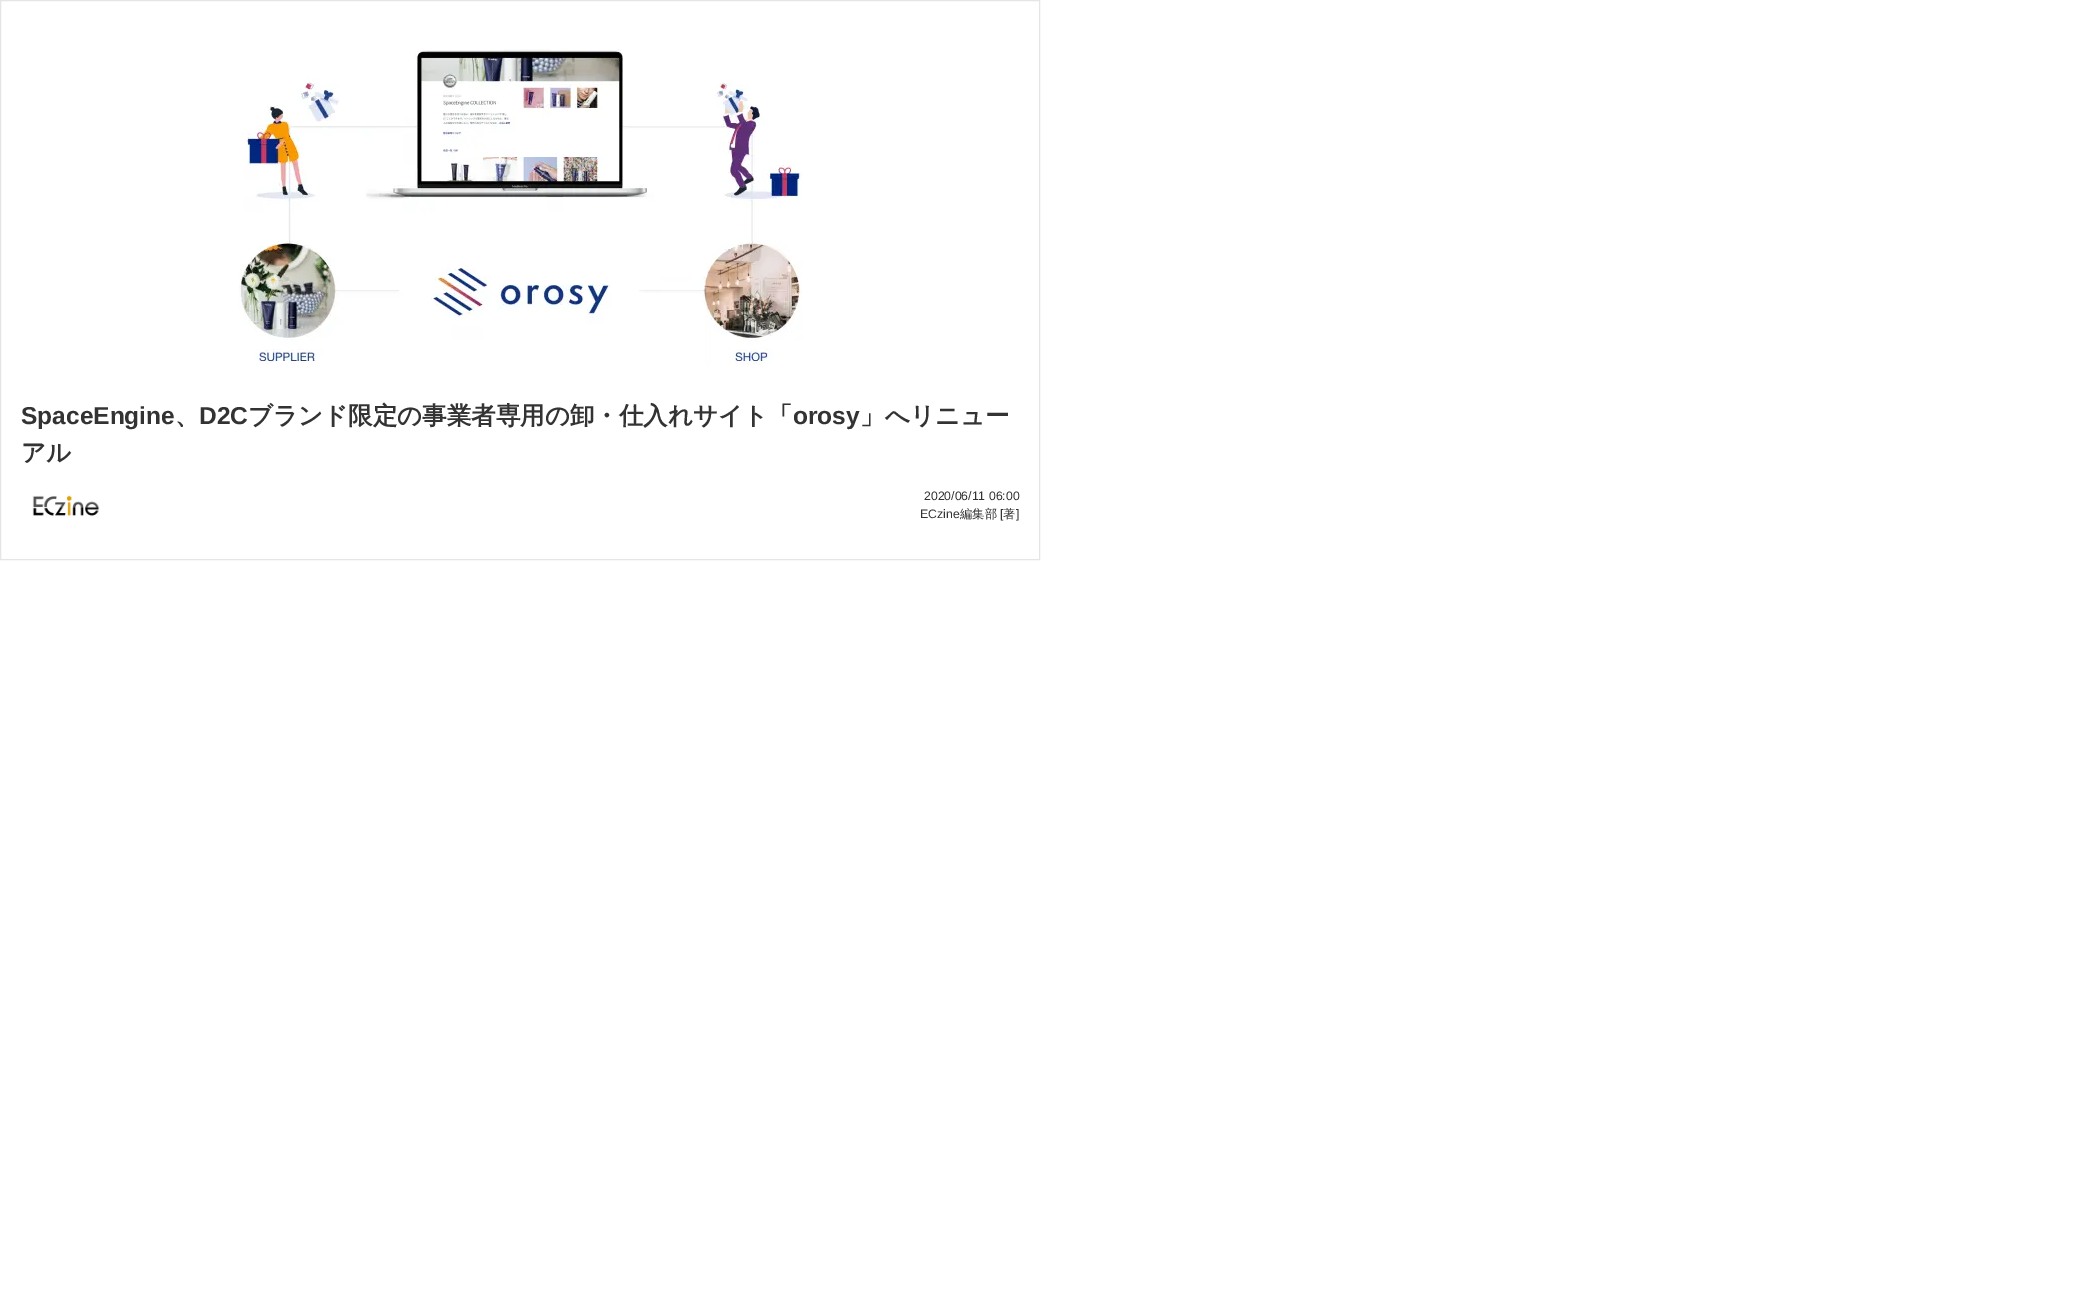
%!PS
<< /PageSize [2094 1310] >> setpagedevice
/rgb { dup -16 bitshift 255 div exch dup -8 bitshift 255 and 255 div exch 255 and 255 div setrgbcolor } def
/font { [ exch dup neg 0 0 3 -1 roll 0 0 ] selectfont } def
/text { moveto show } def
/picture { 5 dict begin { /h /w /y /x /name } { exch def } forall
  gsave x y translate w h scale
  w h 8 [w 0 0 h 0 0] name (r) file false 3 colorimage grestore end } def
0 1310 translate 1 -1 scale
4 setmiterlimit
/s1 { /LiberationSans-Bold 24.5 font 16#333333 rgb } def
/s2 { /WenQuanYiZenHei-Bold 24.5 font 16#333333 rgb } def
/s3 { /LiberationSans-Regular 12.25 font 16#333333 rgb } def
/s4 { /WenQuanYiZenHei-Medium 12.25 font 16#333333 rgb } def
16#FFFFFF rgb
0 0 2094 1310 rectfill
16#E5E5E5 rgb
0.5 0.5 1039 559 rectstroke
(pic1.raw) 239 49 564 316 picture
s1
(SpaceEngine) 21 424 text
s2
(、) 175 424 text
s1
(D2C) 199 424 text
s2
(ブランド限定の事業者専用の卸・仕入れサイト「) 248 424 text
s1
(orosy) 793 424 text
s2
(」へリニュー) 860 424 text
(アル) 21 461 text
(pic2.raw) 32 494 68 25 picture
s3
(2020/06/11 06:00) 924 500 text
(ECzine) 920 518 text
s4
(編集部) 960 518 text
s3
([) 1000 518 text
s4
(著) 1003 518 text
s3
(]) 1016 518 text
showpage
